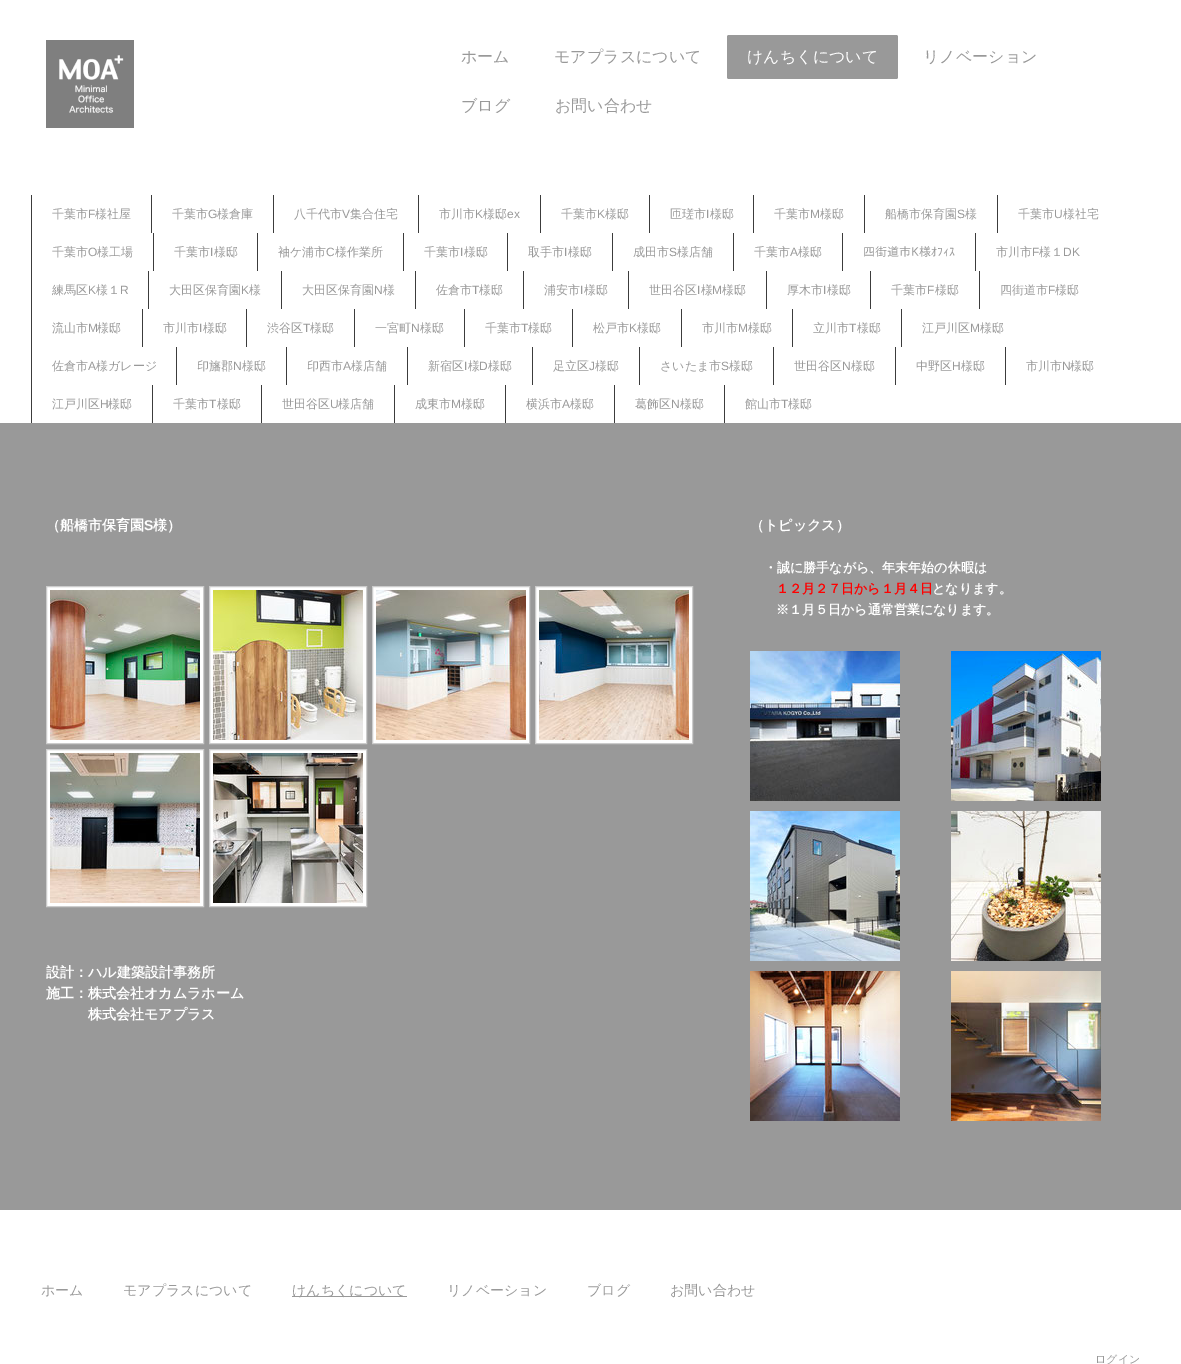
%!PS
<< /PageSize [1181 1364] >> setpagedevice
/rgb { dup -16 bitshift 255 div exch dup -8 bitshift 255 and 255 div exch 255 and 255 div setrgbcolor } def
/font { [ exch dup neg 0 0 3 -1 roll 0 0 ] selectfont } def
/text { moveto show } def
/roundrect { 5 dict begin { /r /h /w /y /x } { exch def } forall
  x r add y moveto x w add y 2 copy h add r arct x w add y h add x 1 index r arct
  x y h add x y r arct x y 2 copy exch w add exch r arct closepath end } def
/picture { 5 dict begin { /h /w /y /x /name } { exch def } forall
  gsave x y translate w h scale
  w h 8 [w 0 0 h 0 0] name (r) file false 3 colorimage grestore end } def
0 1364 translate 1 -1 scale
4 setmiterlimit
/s1 { /WenQuanYiZenHei-Medium 16 font 16#999999 rgb } def
/s2 { /WenQuanYiZenHei-Medium 16 font 16#FFFFFF rgb } def
/s3 { /WenQuanYiZenHei-Medium 12 font 16#999999 rgb } def
/s4 { /LiberationSans-Regular 12 font 16#999999 rgb } def
/s5 { /IPAPGothic-Regular 12 font 16#999999 rgb } def
/s6 { /WenQuanYiZenHei-Bold 14 font 16#FFFFFF rgb } def
/s7 { /LiberationSans-Bold 14 font 16#FFFFFF rgb } def
/s8 { /WenQuanYiZenHei-Bold 13 font 16#FFFFFF rgb } def
/s9 { /WenQuanYiZenHei-Bold 13 font 16#FF0000 rgb } def
/s10 { /WenQuanYiZenHei-Medium 14 font 16#999999 rgb } def
/s11 { /WenQuanYiZenHei-Medium 11 font 16#999999 rgb } def
16#FFFFFF rgb
0 0 1181 1364 rectfill
(pic1.raw) 46 40 88 88 picture
s1
(ホーム) 461 62 text
(モアプラスについて) 554 62 text
727 35 171 44 2 roundrect fill
s2
(けんちくについて) 747 62 text
s1
(リノベーション) 923 62 text
(ブログ) 461 111 text
(お問い合わせ) 555 111 text
16#3C3C3C rgb
31 195 1 228 rectfill
s3
(千葉市) 52 218 text
s4
(F) 88 218 text
s3
(様社屋) 95 218 text
16#3C3C3C rgb
151 195 1 38 rectfill
s3
(千葉市) 172 218 text
s4
(G) 208 218 text
s3
(様倉庫) 217 218 text
16#3C3C3C rgb
273 195 1 38 rectfill
s3
(八千代市) 294 218 text
s4
(V) 342 218 text
s3
(集合住宅) 350 218 text
16#3C3C3C rgb
418 195 1 38 rectfill
s3
(市川市) 439 218 text
s4
(K) 475 218 text
s3
(様邸) 483 218 text
s4
(ex) 507 218 text
16#3C3C3C rgb
540 195 1 38 rectfill
s3
(千葉市) 561 218 text
s4
(K) 597 218 text
s3
(様邸) 605 218 text
16#3C3C3C rgb
649 195 1 38 rectfill
s3
(匝瑳市 様邸) 670 218 text
s4
(I) 706 218 text
16#3C3C3C rgb
753 195 1 38 rectfill
s3
(千葉市) 774 218 text
s4
(M) 810 218 text
s3
(様邸) 820 218 text
16#3C3C3C rgb
864 195 1 38 rectfill
s3
(船橋市保育園) 885 218 text
s4
(S) 957 218 text
s3
(様) 965 218 text
16#3C3C3C rgb
997 195 1 38 rectfill
s3
(千葉市) 1018 218 text
s4
(U) 1054 218 text
s3
(様社宅) 1063 218 text
(千葉市) 52 256 text
s4
(O) 88 256 text
s3
(様工場) 97 256 text
16#3C3C3C rgb
153 233 1 38 rectfill
s3
(千葉市 様邸) 174 256 text
s4
(I) 210 256 text
16#3C3C3C rgb
257 233 1 38 rectfill
s3
(袖ケ浦市) 278 256 text
s4
(C) 326 256 text
s3
(様作業所) 335 256 text
16#3C3C3C rgb
403 233 1 38 rectfill
s3
(千葉市 様邸) 424 256 text
s4
(I) 460 256 text
16#3C3C3C rgb
507 233 1 38 rectfill
s3
(取手市 様邸) 528 256 text
s4
(I) 564 256 text
16#3C3C3C rgb
612 233 1 38 rectfill
s3
(成田市) 633 256 text
s4
(S) 669 256 text
s3
(様店舗) 677 256 text
16#3C3C3C rgb
733 233 1 38 rectfill
s3
(千葉市) 754 256 text
s4
(A) 790 256 text
s3
(様邸) 798 256 text
16#3C3C3C rgb
842 233 1 38 rectfill
s5
(四街道市K様ｵﾌｨｽ) 863 256 text
16#3C3C3C rgb
975 233 1 38 rectfill
s3
(市川市) 996 256 text
s4
(F) 1032 256 text
s3
(様１) 1039 256 text
s4
(DK) 1063 256 text
s3
(練馬区) 52 294 text
s4
(K) 88 294 text
s3
(様１) 96 294 text
s4
(R) 120 294 text
16#3C3C3C rgb
148 271 1 38 rectfill
s3
(大田区保育園) 169 294 text
s4
(K) 241 294 text
s3
(様) 249 294 text
16#3C3C3C rgb
281 271 1 38 rectfill
s3
(大田区保育園) 302 294 text
s4
(N) 374 294 text
s3
(様) 383 294 text
16#3C3C3C rgb
415 271 1 38 rectfill
s3
(佐倉市) 436 294 text
s4
(T) 472 294 text
s3
(様邸) 479 294 text
16#3C3C3C rgb
523 271 1 38 rectfill
s3
(浦安市 様邸) 544 294 text
s4
(I) 580 294 text
16#3C3C3C rgb
628 271 1 38 rectfill
s3
(世田谷区 様) 649 294 text
(様邸) 722 294 text
s4
(I) 697 294 text
(M) 712 294 text
16#3C3C3C rgb
766 271 1 38 rectfill
s3
(厚木市 様邸) 787 294 text
s4
(I) 823 294 text
16#3C3C3C rgb
870 271 1 38 rectfill
s3
(千葉市) 891 294 text
s4
(F) 927 294 text
s3
(様邸) 935 294 text
16#3C3C3C rgb
979 271 1 38 rectfill
s3
(四街道市) 1000 294 text
s4
(F) 1048 294 text
s3
(様邸) 1055 294 text
(流山市) 52 332 text
s4
(M) 88 332 text
s3
(様邸) 97 332 text
16#3C3C3C rgb
142 309 1 38 rectfill
s3
(市川市 様邸) 163 332 text
s4
(I) 199 332 text
16#3C3C3C rgb
246 309 1 38 rectfill
s3
(渋谷区) 267 332 text
s4
(T) 303 332 text
s3
(様邸) 310 332 text
16#3C3C3C rgb
354 309 1 38 rectfill
s3
(一宮町) 375 332 text
s4
(N) 411 332 text
s3
(様邸) 420 332 text
16#3C3C3C rgb
464 309 1 38 rectfill
s3
(千葉市) 485 332 text
s4
(T) 521 332 text
s3
(様邸) 528 332 text
16#3C3C3C rgb
572 309 1 38 rectfill
s3
(松戸市) 593 332 text
s4
(K) 629 332 text
s3
(様邸) 637 332 text
16#3C3C3C rgb
681 309 1 38 rectfill
s3
(市川市) 702 332 text
s4
(M) 738 332 text
s3
(様邸) 748 332 text
16#3C3C3C rgb
792 309 1 38 rectfill
s3
(立川市) 813 332 text
s4
(T) 849 332 text
s3
(様邸) 857 332 text
16#3C3C3C rgb
901 309 1 38 rectfill
s3
(江戸川区) 922 332 text
s4
(M) 970 332 text
s3
(様邸) 980 332 text
(佐倉市) 52 370 text
s4
(A) 88 370 text
s3
(様ガレージ) 96 370 text
16#3C3C3C rgb
176 347 1 38 rectfill
s3
(印旛郡) 197 370 text
s4
(N) 233 370 text
s3
(様邸) 242 370 text
16#3C3C3C rgb
286 347 1 38 rectfill
s3
(印西市) 307 370 text
s4
(A) 343 370 text
s3
(様店舗) 351 370 text
16#3C3C3C rgb
407 347 1 38 rectfill
s3
(新宿区 様) 428 370 text
(様邸) 488 370 text
s4
(I) 464 370 text
(D) 479 370 text
16#3C3C3C rgb
532 347 1 38 rectfill
s3
(足立区) 553 370 text
s4
(J) 589 370 text
s3
(様邸) 595 370 text
16#3C3C3C rgb
639 347 1 38 rectfill
s3
(さいたま市) 660 370 text
s4
(S) 721 370 text
s3
(様邸) 729 370 text
16#3C3C3C rgb
773 347 1 38 rectfill
s3
(世田谷区) 794 370 text
s4
(N) 842 370 text
s3
(様邸) 851 370 text
16#3C3C3C rgb
895 347 1 38 rectfill
s3
(中野区) 916 370 text
s4
(H) 952 370 text
s3
(様邸) 961 370 text
16#3C3C3C rgb
1005 347 1 38 rectfill
s3
(市川市) 1026 370 text
s4
(N) 1062 370 text
s3
(様邸) 1070 370 text
(江戸川区) 52 408 text
s4
(H) 100 408 text
s3
(様邸) 108 408 text
16#3C3C3C rgb
152 385 1 38 rectfill
s3
(千葉市) 173 408 text
s4
(T) 209 408 text
s3
(様邸) 217 408 text
16#3C3C3C rgb
261 385 1 38 rectfill
s3
(世田谷区) 282 408 text
s4
(U) 330 408 text
s3
(様店舗) 338 408 text
16#3C3C3C rgb
394 385 1 38 rectfill
s3
(成東市) 415 408 text
s4
(M) 451 408 text
s3
(様邸) 461 408 text
16#3C3C3C rgb
505 385 1 38 rectfill
s3
(横浜市) 526 408 text
s4
(A) 562 408 text
s3
(様邸) 570 408 text
16#3C3C3C rgb
614 385 1 38 rectfill
s3
(葛飾区) 635 408 text
s4
(N) 671 408 text
s3
(様邸) 680 408 text
16#3C3C3C rgb
724 385 1 38 rectfill
s3
(館山市) 745 408 text
s4
(T) 781 408 text
s3
(様邸) 788 408 text
0 423 1181 787 rectfill
s6
(（船橋市保育園) 46 530 text
s7
(S) 144 530 text
s6
(様）) 153 530 text
46.5 586.5 moveto 203.5 586.5 lineto 203.5 743.5 lineto 46.5 743.5 lineto closepath gsave fill grestore
16#CCCCCC rgb
stroke
(pic2.raw) 50 590 150 150 picture
16#FFFFFF rgb
209.5 586.5 moveto 366.5 586.5 lineto 366.5 743.5 lineto 209.5 743.5 lineto closepath gsave fill grestore
16#CCCCCC rgb
stroke
(pic3.raw) 213 590 150 150 picture
16#FFFFFF rgb
372.5 586.5 moveto 529.5 586.5 lineto 529.5 743.5 lineto 372.5 743.5 lineto closepath gsave fill grestore
16#CCCCCC rgb
stroke
(pic4.raw) 376 590 150 150 picture
16#FFFFFF rgb
535.5 586.5 moveto 692.5 586.5 lineto 692.5 743.5 lineto 535.5 743.5 lineto closepath gsave fill grestore
16#CCCCCC rgb
stroke
(pic5.raw) 539 590 150 150 picture
16#FFFFFF rgb
46.5 749.5 moveto 203.5 749.5 lineto 203.5 906.5 lineto 46.5 906.5 lineto closepath gsave fill grestore
16#CCCCCC rgb
stroke
(pic6.raw) 50 753 150 150 picture
16#FFFFFF rgb
209.5 749.5 moveto 366.5 749.5 lineto 366.5 906.5 lineto 209.5 906.5 lineto closepath gsave fill grestore
16#CCCCCC rgb
stroke
(pic7.raw) 213 753 150 150 picture
s6
(設計：ハル建築設計事務所) 46 977 text
(施工：株式会社オカムラホーム) 46 998 text
(株式会社モアプラス) 88 1019 text
(（トピックス）) 750 530 text
s8
(・誠に勝手ながら、年末年始の休暇は) 764 572 text
s9
(１２月２７日から１月４日) 776 593 text
s8
(となります。) 932 593 text
(※１月５日から通常営業になります。) 776 614 text
(pic8.raw) 750 651 150 150 picture
(pic9.raw) 951 651 150 150 picture
(pic10.raw) 750 811 150 150 picture
(pic11.raw) 951 811 150 150 picture
(pic12.raw) 750 971 150 150 picture
(pic13.raw) 951 971 150 150 picture
s10
(ホーム) 41 1295 text
(モアプラスについて) 123 1295 text
292 1296 115 1 rectfill
(けんちくについて) 292 1295 text
(リノベーション) 447 1295 text
(ブログ) 587 1295 text
(お問い合わせ) 670 1295 text
s11
(ログイン) 1095 1363 text
showpage
